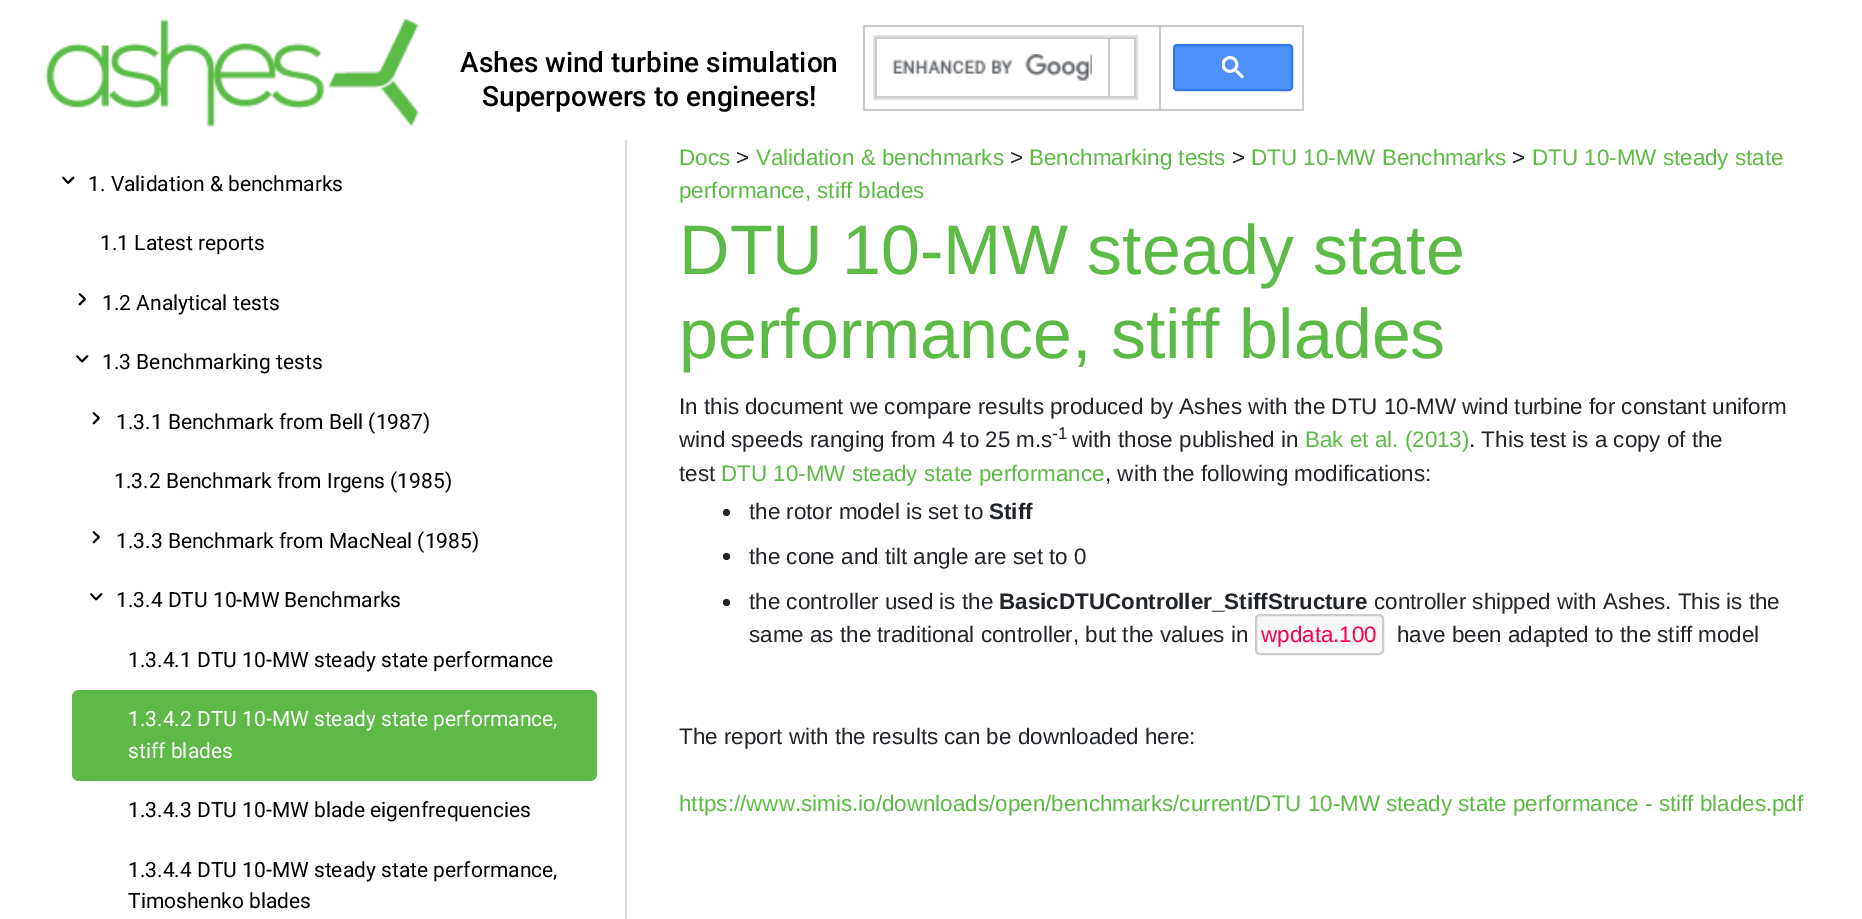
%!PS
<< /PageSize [1862 919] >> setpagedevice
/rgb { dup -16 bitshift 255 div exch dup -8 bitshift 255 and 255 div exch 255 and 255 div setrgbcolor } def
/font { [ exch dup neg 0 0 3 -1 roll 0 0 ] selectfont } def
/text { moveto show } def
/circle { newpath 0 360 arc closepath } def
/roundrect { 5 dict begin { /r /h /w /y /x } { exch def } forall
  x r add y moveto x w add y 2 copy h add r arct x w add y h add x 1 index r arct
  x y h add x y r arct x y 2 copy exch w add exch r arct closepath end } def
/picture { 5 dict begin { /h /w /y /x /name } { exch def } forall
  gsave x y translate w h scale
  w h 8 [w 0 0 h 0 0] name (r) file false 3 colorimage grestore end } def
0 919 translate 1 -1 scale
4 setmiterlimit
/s1 { /Roboto-Medium 28 font 16#000000 rgb } def
/s2 { /Roboto-Regular 21 font 16#000000 rgb } def
/s3 { /Roboto-Regular 21 font 16#FFFFFF rgb } def
/s4 { /LiberationSans-Regular 22.4 font 16#5EBA47 rgb } def
/s5 { /LiberationSans-Regular 22.4 font 16#212529 rgb } def
/s6 { /LiberationSans-Regular 70 font 16#5EBA47 rgb } def
/s7 { /LiberationSans-Regular 17 font 16#212529 rgb } def
/s8 { /LiberationSans-Bold 22.4 font 16#212529 rgb } def
/s9 { /LiberationSans-Regular 22.4 font 16#FF004C rgb } def
16#FFFFFF rgb
0 0 1862 919 rectfill
(pic1.raw) 45 18 374 109 picture
s1
(Ashes wind turbine simulation) 460 72 text
(Superpowers to engineers!) 482 106 text
16#CCCCCC rgb
1159 25 145 2 rectfill
1302 25 2 85 rectfill
1159 109 145 2 rectfill
1159 25 2 85 rectfill
863 25 297 2 rectfill
863 109 297 2 rectfill
863 25 2 85 rectfill
16#DFE1E5 rgb
2 setlinewidth
874 36 263 63 rectstroke
16#CCCCCC rgb
1108 37 28 2 rectfill
1134 37 2 61 rectfill
1108 96 28 2 rectfill
1108 37 2 61 rectfill
875 37 235 2 rectfill
875 96 235 2 rectfill
875 37 2 61 rectfill
(pic2.raw) 892 54 200 27 picture
16#4D90FE rgb
1174 45 118 45 3 roundrect gsave fill grestore
16#3079ED rgb
stroke
(pic3.raw) 1222 56 22 23 picture
16#DDDDDD rgb
625 140 2 779 rectfill
16#000000 rgb
1.8 setlinewidth
1 setlinecap
1 setlinejoin
63 177.5 moveto 68 183 lineto 73.5 177.5 lineto stroke
s2
(1. Validation & benchmarks) 88 191 text
(1.1 Latest reports) 100 250 text
79.5 304.5 moveto 85 299 lineto 79.5 294 lineto stroke
(1.2 Analytical tests) 102 310 text
77 356 moveto 82 361.5 lineto 87.5 356 lineto stroke
(1.3 Benchmarking tests) 102 369 text
93.5 423.5 moveto 99 418 lineto 93.5 413 lineto stroke
(1.3.1 Benchmark from Bell \(1987\)) 116 429 text
(1.3.2 Benchmark from Irgens \(1985\)) 114 488 text
93.5 542.5 moveto 99 537 lineto 93.5 532 lineto stroke
(1.3.3 Benchmark from MacNeal \(1985\)) 116 548 text
91 594 moveto 96 599.5 lineto 101.5 594 lineto stroke
(1.3.4 DTU 10-MW Benchmarks) 116 607 text
(1.3.4.1 DTU 10-MW steady state performance) 128 667 text
16#5EBA47 rgb
72 690 525 91 7 roundrect fill
s3
(1.3.4.2 DTU 10-MW steady state performance,) 128 726 text
(stiff blades) 128 758 text
s2
(1.3.4.3 DTU 10-MW blade eigenfrequencies) 128 817 text
(1.3.4.4 DTU 10-MW steady state performance,) 128 877 text
(Timoshenko blades) 128 908 text
s4
(Docs) 679 165 text
s5
(>) 736 165 text
s4
(Validation & benchmarks) 756 165 text
s5
(>) 1010 165 text
s4
(Benchmarking tests) 1029 165 text
s5
(>) 1232 165 text
s4
(DTU 10-MW Benchmarks) 1251 165 text
s5
(>) 1512 165 text
s4
(DTU 10-MW steady state) 1532 165 text
(performance, stiff blades) 679 198 text
s6
(DTU 10-MW steady state) 679 274 text
(performance, stiff blades) 679 358 text
s5
(In this document we compare results produced by Ashes with the DTU 10-MW wind turbine for constant uniform) 679 414 text
(wind speeds ranging from 4 to 25 m.s) 679 447 text
s7
(-1) 1052 439 text
s5
(with those published in) 1072 447 text
s4
(Bak et al. \(2013\)) 1305 447 text
s5
(. This test is a copy of the) 1469 447 text
(test) 679 481 text
s4
(DTU 10-MW steady state performance) 721 481 text
s5
(, with the following modifications:) 1105 481 text
726.5 512.5 3.5 circle fill
(the rotor model is set to) 749 519 text
s8
(Stiff) 989 519 text
726.5 556.5 3.5 circle fill
s5
(the cone and tilt angle are set to 0) 749 564 text
726.5 602.5 3.5 circle fill
(the controller used is the) 749 609 text
s8
(BasicDTUController_StiffStructure) 999 609 text
s5
(controller shipped with Ashes. This is the) 1374 609 text
(same as the traditional controller, but the values in) 749 642 text
16#F7F7F7 rgb
1256 615 127 39 4 roundrect gsave fill grestore
16#CCCCCC rgb
2 setlinewidth
0 setlinecap
0 setlinejoin
stroke
s9
(wpdata.100) 1261 642 text
s5
(have been adapted to the stiff model) 1397 642 text
(The report with the results can be downloaded here:) 679 744 text
s4
(https://www.simis.io/downloads/open/benchmarks/current/DTU 10-MW steady state performance - stiff blades.pdf) 679 811 text
showpage
